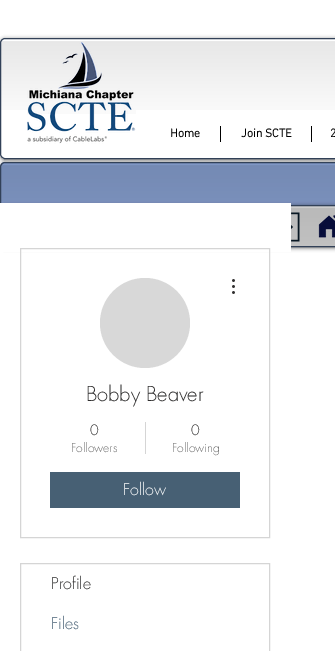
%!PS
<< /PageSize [335 651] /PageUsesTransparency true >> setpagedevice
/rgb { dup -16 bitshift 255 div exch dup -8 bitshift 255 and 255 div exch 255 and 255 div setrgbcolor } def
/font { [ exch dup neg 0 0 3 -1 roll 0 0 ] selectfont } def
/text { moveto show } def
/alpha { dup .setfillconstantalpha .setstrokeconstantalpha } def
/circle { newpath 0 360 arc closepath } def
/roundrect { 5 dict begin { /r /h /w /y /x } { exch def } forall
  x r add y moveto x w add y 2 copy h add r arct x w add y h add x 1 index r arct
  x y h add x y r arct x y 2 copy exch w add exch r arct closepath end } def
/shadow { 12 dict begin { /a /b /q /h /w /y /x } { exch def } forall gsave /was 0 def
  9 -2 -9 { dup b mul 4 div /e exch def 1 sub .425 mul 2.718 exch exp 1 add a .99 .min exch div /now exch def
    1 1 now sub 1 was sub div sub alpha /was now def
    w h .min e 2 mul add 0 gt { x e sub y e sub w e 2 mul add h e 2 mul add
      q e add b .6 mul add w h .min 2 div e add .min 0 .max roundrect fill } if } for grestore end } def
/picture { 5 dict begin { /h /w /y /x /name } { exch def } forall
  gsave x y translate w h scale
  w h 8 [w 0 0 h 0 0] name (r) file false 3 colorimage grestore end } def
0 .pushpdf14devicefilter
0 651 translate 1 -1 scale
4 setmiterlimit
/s1 { /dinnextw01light-Bold 12 font 16#000000 rgb } def
/s2 { /futura-Light 20 font 16#2F2E2E rgb } def
/s3 { /futura-Light 14 font 16#2F2E2E rgb } def
/s4 { /futura-Light 12 font 16#6D6D6D rgb } def
/s5 { /futura-Light 16 font 16#FFFFFF rgb } def
/s6 { /futura-Light 16 font 16#2F2E2E rgb } def
/s7 { /futura-Light 16 font 16#476074 rgb } def
16#FFFFFF rgb
0 0 335 651 rectfill
gsave
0 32 moveto 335 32 lineto 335 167 lineto 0 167 lineto closepath 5 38 moveto 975 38 lineto 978 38 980 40 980 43 curveto 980 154 lineto 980 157 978 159 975 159 curveto 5 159 lineto 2 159 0 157 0 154 curveto 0 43 lineto 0 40 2 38 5 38 curveto closepath eoclip newpath
16#000000 rgb
0 39 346 121 5 2 0.6 shadow
grestore
0.93 alpha
0 38 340 121 5 roundrect fill
1 alpha
(pic2.raw) 0 41 335 69 picture
16#324158 rgb
0.5 38.5 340 120 4.5 roundrect stroke
(pic1.raw) 27 42 109 102 picture
s1
(Home) 170 137 text
220 126 1 16 rectfill
(Join SCTE) 241 137 text
311 126 1 16 rectfill
(2) 330 137 text
gsave
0 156 moveto 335 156 lineto 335 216 lineto 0 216 lineto closepath 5 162 moveto 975 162 lineto 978 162 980 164 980 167 curveto 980 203 lineto 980 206 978 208 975 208 curveto 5 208 lineto 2 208 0 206 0 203 curveto 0 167 lineto 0 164 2 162 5 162 curveto closepath eoclip newpath
0 163 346 46 5 2 0.6 shadow
grestore
0.58 alpha
16#254D9C rgb
0 162 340 46 5 roundrect fill
1 alpha
(pic3.raw) 0 165 335 40 picture
16#324158 rgb
0.5 162.5 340 45 4.5 roundrect stroke
16#000000 rgb
0 206 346 42 5 2 0.6 shadow
16#CCCCCC rgb
291 206 44 40 rectfill
(pic4.raw) 291 208 44 38 picture
16#324158 rgb
0.5 205.5 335 41 rectstroke
(pic5.raw) 291 212 9 30 picture
(pic6.raw) 318 215 17 23 picture
16#FFFFFF rgb
0 203 291 49 rectfill
16#D5D5D5 rgb
20.5 248.5 249 289 rectstroke
16#D8D8D8 rgb
145 323 45 circle fill
(pic7.raw) 232 279 3 15 picture
s2
(Bobby Beaver) 86 401 text
s3
(0) 90 435 text
s4
(Followers) 71 452 text
16#D5D5D5 rgb
145 422 1 32 rectfill
s3
(0) 191 435 text
s4
(Following) 172 452 text
16#476074 rgb
50 472 190 36 rectfill
s5
(Follow) 123 495 text
16#D5D5D5 rgb
20.5 563.5 249 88 rectstroke
s6
(Profile) 51 589 text
s7
(Files) 51 629 text
.poppdf14devicefilter showpage
